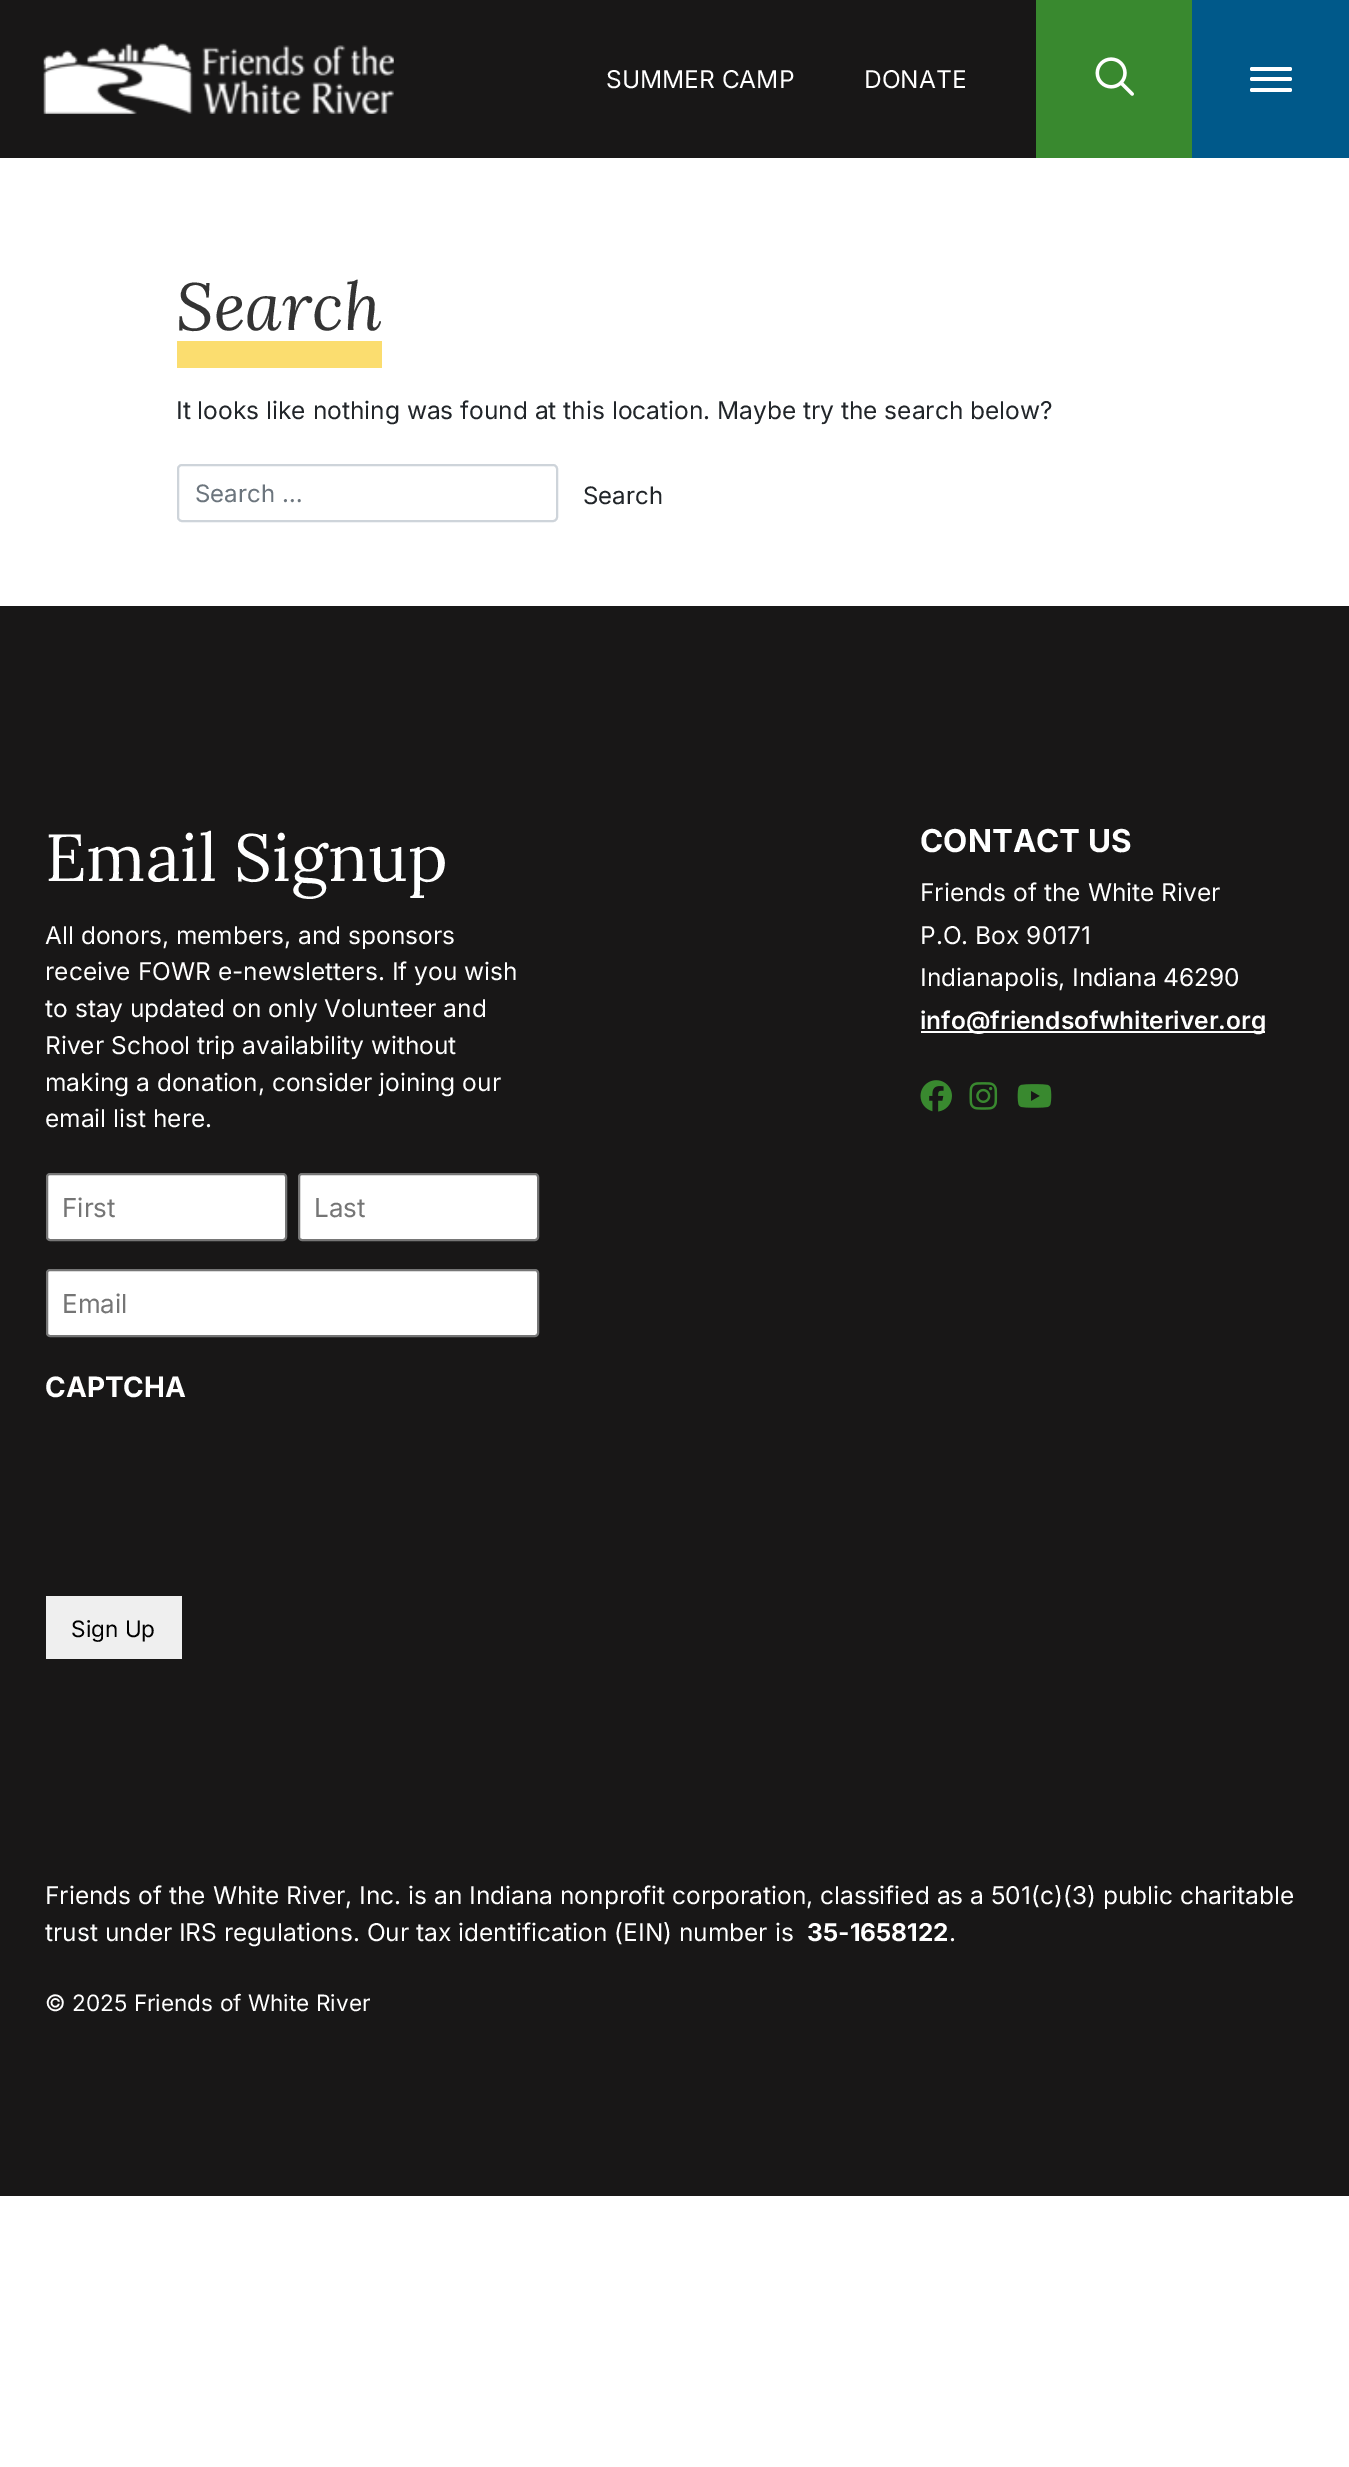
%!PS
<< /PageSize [1349 2467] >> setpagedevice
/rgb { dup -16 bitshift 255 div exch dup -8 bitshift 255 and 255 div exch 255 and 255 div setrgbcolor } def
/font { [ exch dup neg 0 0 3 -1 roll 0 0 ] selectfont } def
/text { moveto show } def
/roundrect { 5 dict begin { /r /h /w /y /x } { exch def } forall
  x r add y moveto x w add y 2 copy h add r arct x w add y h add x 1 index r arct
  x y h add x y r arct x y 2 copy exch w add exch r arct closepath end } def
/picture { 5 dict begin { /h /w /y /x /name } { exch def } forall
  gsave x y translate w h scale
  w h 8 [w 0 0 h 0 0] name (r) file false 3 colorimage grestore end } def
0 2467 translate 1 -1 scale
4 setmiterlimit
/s1 { /Inter-Regular 24.5 font 16#FFFFFF rgb } def
/s2 { /Lora-Italic 66.5 font 16#343434 rgb } def
/s3 { /Inter-Regular 24.5 font 16#212529 rgb } def
/s4 { /Inter-Regular 24 font 16#6C757D rgb } def
/s5 { /Inter-Regular 24 font 16#212529 rgb } def
/s6 { /Lora-Regular 66.5 font 16#FFFFFF rgb } def
/s7 { /Inter-Regular 26 font 16#757575 rgb } def
/s8 { /Inter-Bold 28 font 16#FFFFFF rgb } def
/s9 { /Inter-Regular 22.6 font 16#000000 rgb } def
/s10 { /Inter-Bold 31.5 font 16#FFFFFF rgb } def
/s11 { /Inter-SemiBold 24.5 font 16#FFFFFF rgb } def
/s12 { /Inter-Bold 24.5 font 16#FFFFFF rgb } def
/s13 { /Inter-Regular 22.6 font 16#FFFFFF rgb } def
16#FFFFFF rgb
0 0 1349 2467 rectfill
16#181717 rgb
0 0 1036 158 rectfill
(pic1.raw) 43 43 351 71 picture
s1
(SUMMER CAMP) 606 88 text
(DONATE) 864 88 text
16#39892F rgb
1036 0 156 158 rectfill
(pic2.raw) 1095 57 39 39 picture
16#00598A rgb
1192 0 157 158 rectfill
16#FFFFFF rgb
1250 67 42 4 2 roundrect fill
1250 77 42 4 2 roundrect fill
1250 88 42 4 2 roundrect fill
16#FBDD6F rgb
177 341 205 27 rectfill
s2
(Search) 176 330 text
s3
(It looks like nothing was found at this location. Maybe try the search below?) 176 419 text
16#CED4DA rgb
2 setlinewidth
178 465 379 56 4 roundrect stroke
s4
(Search …) 195 502 text
s5
(Search) 583 504 text
16#181717 rgb
0 606 1349 1590 rectfill
s6
(Email Signup) 45 881 text
s1
(All donors, members, and sponsors) 45 944 text
(receive FOWR e-newsletters. If you wish) 45 980 text
(to stay updated on only Volunteer and) 45 1017 text
(River School trip availability without) 45 1054 text
(making a donation, consider joining our) 45 1091 text
(email list here.) 45 1127 text
47 1174 239 66 3 roundrect gsave fill grestore
16#767676 rgb
stroke
s7
(First) 62 1217 text
16#FFFFFF rgb
299 1174 239 66 3 roundrect gsave fill grestore
16#767676 rgb
stroke
s7
(Last) 314 1217 text
16#FFFFFF rgb
47 1270 491 66 3 roundrect gsave fill grestore
16#767676 rgb
stroke
s7
(Email) 62 1313 text
s8
(CAPTCHA) 45 1397 text
16#EFEFEF rgb
46 1596 136 63 rectfill
s9
(Sign Up) 71 1637 text
s10
(CONTACT US) 920 852 text
s1
(Friends of the White River) 920 901 text
(P.O. Box 90171) 920 944 text
(Indianapolis, Indiana 46290) 920 986 text
921 1031 344 2 rectfill
s11
(info@friendsofwhiteriver.org) 920 1029 text
(pic3.raw) 920 1080 32 32 picture
(pic4.raw) 969 1082 29 28 picture
(pic5.raw) 1017 1084 35 24 picture
s1
(Friends of the White River, Inc. is an Indiana nonprofit corporation, classified as a 501\(c\)\(3\) public charitable) 45 1904 text
(trust under IRS regulations. Our tax identification \(EIN\) number is) 45 1941 text
s12
(35-1658122) 807 1941 text
s1
(.) 949 1941 text
s13
(© 2025 Friends of White River) 45 2011 text
showpage
